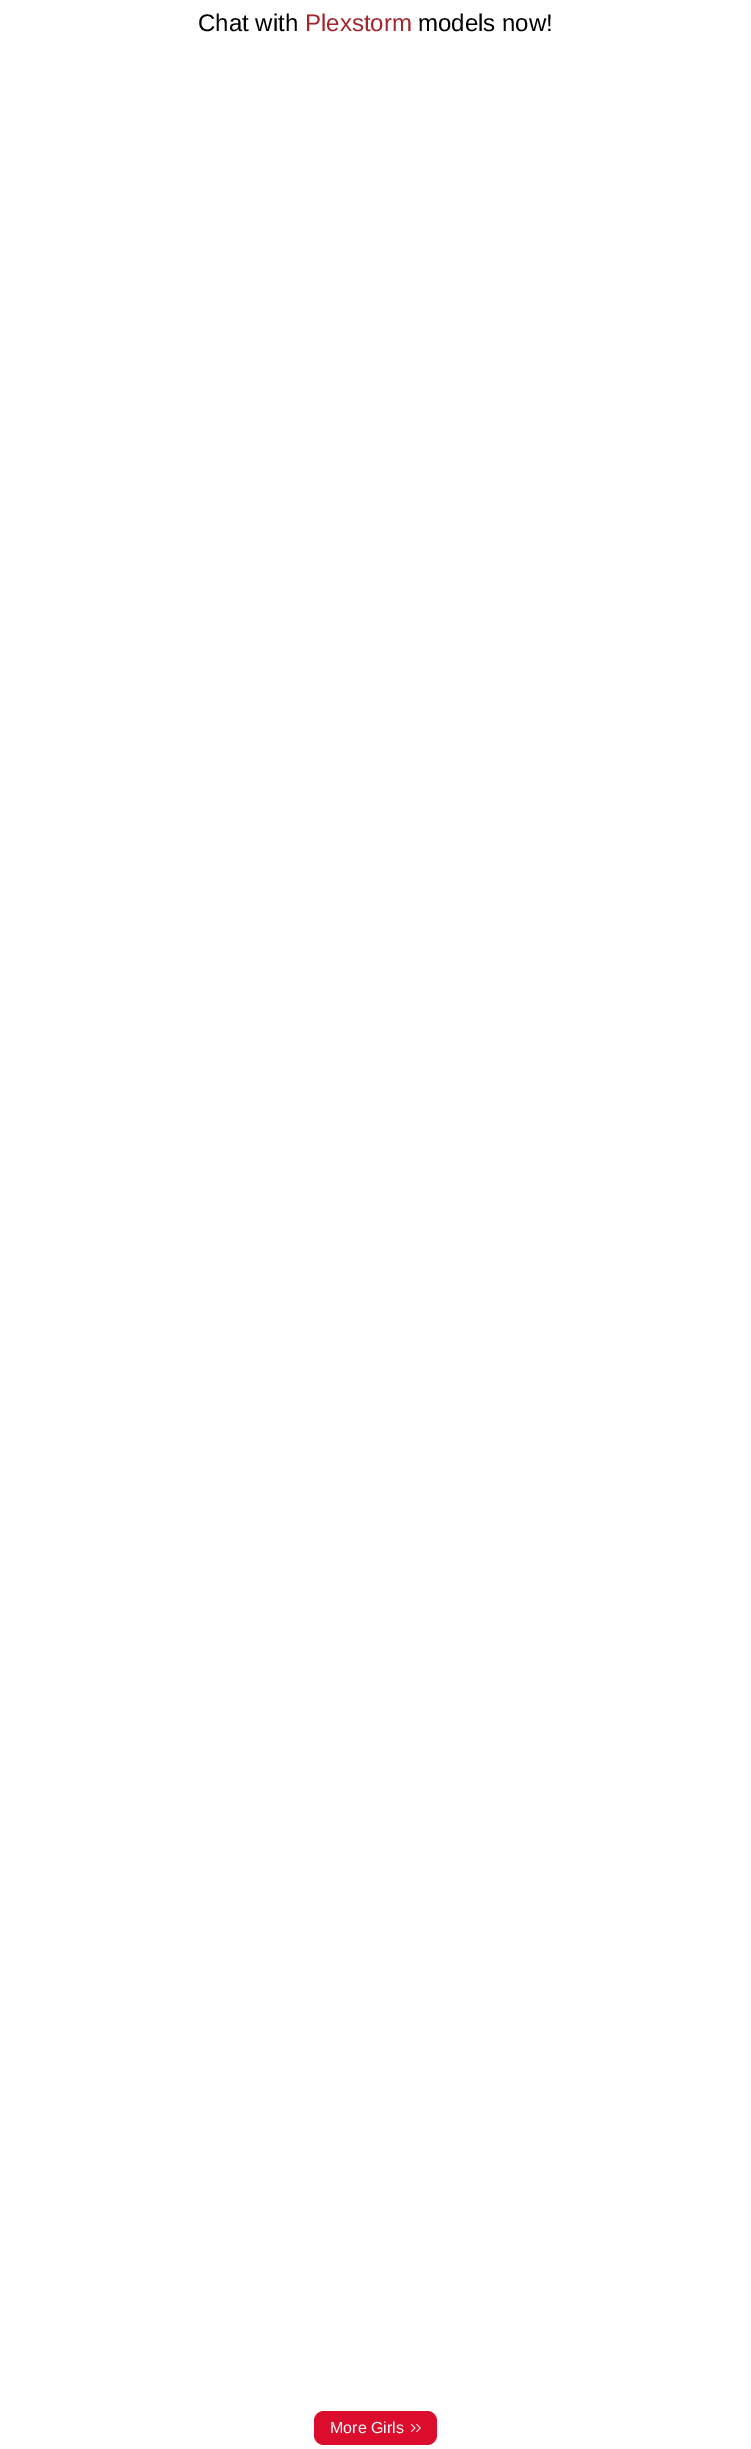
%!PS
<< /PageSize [751 2449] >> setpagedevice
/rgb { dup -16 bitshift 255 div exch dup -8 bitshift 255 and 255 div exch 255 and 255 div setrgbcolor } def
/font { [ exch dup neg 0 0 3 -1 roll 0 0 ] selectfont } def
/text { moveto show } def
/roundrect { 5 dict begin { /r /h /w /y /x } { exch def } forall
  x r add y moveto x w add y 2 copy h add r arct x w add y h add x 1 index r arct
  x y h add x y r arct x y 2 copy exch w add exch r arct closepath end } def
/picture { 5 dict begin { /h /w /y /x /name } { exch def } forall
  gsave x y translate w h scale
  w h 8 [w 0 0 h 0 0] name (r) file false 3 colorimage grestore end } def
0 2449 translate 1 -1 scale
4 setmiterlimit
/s1 { /LiberationSans-Regular 24 font 16#000000 rgb } def
/s2 { /LiberationSans-Regular 24 font 16#A2262E rgb } def
/s3 { /LiberationSans-Regular 16 font 16#FFFFFF rgb } def
16#FFFFFF rgb
0 0 751 2449 rectfill
s1
(Chat with) 198 31 text
s2
(Plexstorm) 305 31 text
s1
(models now!) 418 31 text
16#DC0C2C rgb
314 2411 123 34 10 roundrect fill
s3
(More Girls) 330 2433 text
(pic1.raw) 411 2424 10 8 picture
showpage
